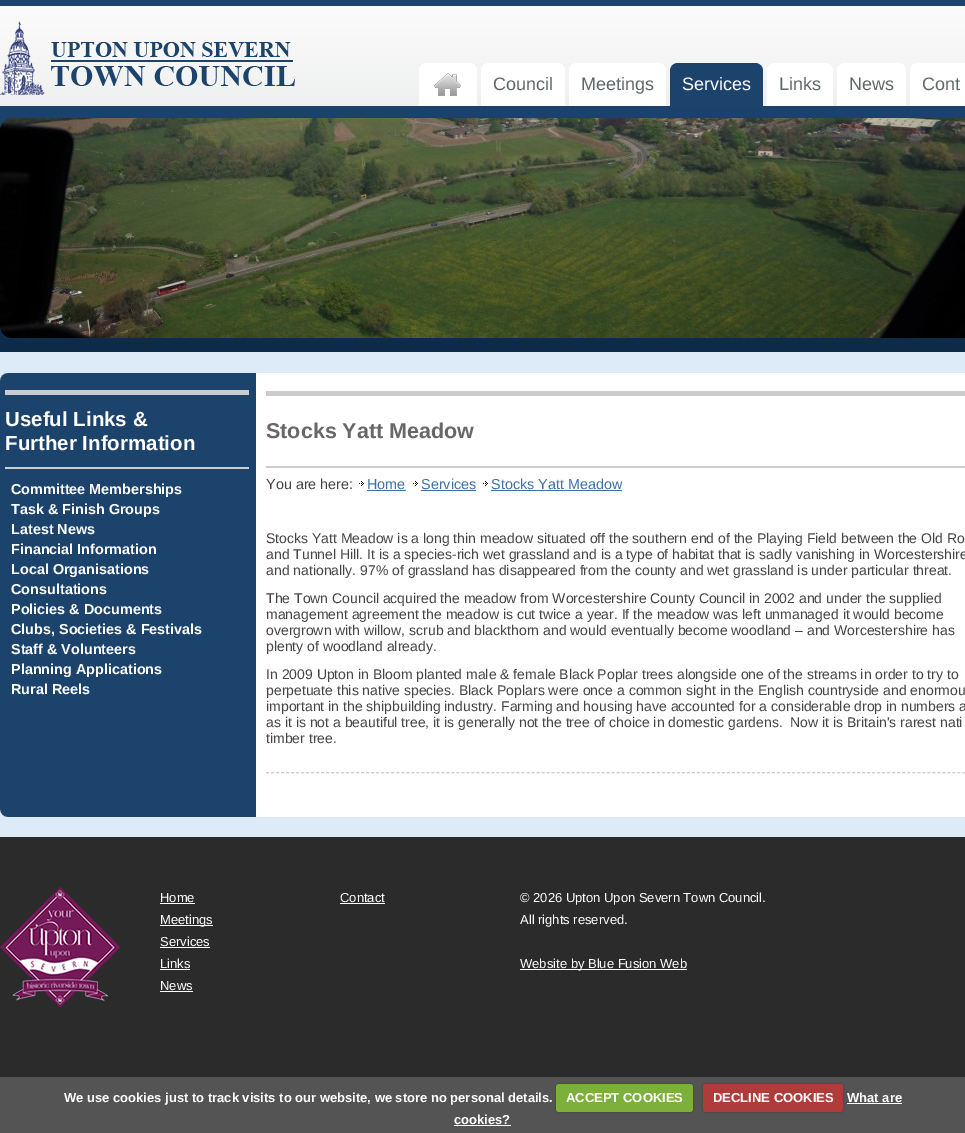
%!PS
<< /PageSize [965 1133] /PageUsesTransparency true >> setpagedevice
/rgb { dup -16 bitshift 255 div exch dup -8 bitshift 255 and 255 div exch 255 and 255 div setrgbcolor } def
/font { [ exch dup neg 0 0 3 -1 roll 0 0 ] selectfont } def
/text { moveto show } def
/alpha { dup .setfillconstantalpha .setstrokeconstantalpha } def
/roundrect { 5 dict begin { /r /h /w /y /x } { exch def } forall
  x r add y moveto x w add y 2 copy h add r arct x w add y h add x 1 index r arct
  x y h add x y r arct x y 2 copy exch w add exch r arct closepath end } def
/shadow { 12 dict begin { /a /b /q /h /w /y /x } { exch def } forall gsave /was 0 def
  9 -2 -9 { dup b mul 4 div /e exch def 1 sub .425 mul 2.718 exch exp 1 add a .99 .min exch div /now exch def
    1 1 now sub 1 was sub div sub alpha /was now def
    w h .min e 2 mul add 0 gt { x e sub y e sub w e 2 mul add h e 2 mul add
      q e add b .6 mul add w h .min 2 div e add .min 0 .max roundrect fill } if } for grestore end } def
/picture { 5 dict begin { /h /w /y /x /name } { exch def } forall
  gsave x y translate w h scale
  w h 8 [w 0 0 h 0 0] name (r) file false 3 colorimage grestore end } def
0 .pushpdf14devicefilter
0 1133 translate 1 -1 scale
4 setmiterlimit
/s1 { /LiberationSans-Regular 18 font 16#5F6868 rgb } def
/s2 { /LiberationSans-Regular 18 font 16#FFFFFF rgb } def
/s3 { /LiberationSans-Bold 20.5 font 16#FFFFFF rgb } def
/s4 { /LiberationSans-Bold 14.4 font 16#FFFFFF rgb } def
/s5 { /LiberationSans-Bold 21.5 font 16#686868 rgb } def
/s6 { /LiberationSans-Regular 14.4 font 16#444444 rgb } def
/s7 { /LiberationSans-Regular 14.4 font 16#3F70A5 rgb } def
/s8 { /LiberationSans-Regular 14 font 16#444444 rgb } def
/s9 { /LiberationSans-Regular 13 font 16#FFFFFF rgb } def
/s10 { /LiberationSans-Bold 13 font 16#FFFFFF rgb } def
16#2B2B2B rgb
0 0 965 1133 rectfill
16#DDEAF7 rgb
0 352 965 485 rectfill
(pic1.raw) 0 6 965 100 picture
16#1C436C rgb
0 0 965 6 rectfill
(pic2.raw) 0 21 295 74 picture
16#FFFFFF rgb
427 63 moveto 469 63 lineto 473.5 63 477 66.5 477 71 curveto 477 106 lineto 419 106 lineto 419 71 lineto 419 66.5 422.5 63 427 63 curveto closepath fill
(pic3.raw) 434 73 27 23 picture
489 63 moveto 557 63 lineto 561.5 63 565 66.5 565 71 curveto 565 106 lineto 481 106 lineto 481 71 lineto 481 66.5 484.5 63 489 63 curveto closepath fill
s1
(Council) 493 90 text
16#FFFFFF rgb
577 63 moveto 658 63 lineto 662.5 63 666 66.5 666 71 curveto 666 106 lineto 569 106 lineto 569 71 lineto 569 66.5 572.5 63 577 63 curveto closepath fill
s1
(Meetings) 581 90 text
16#1C436C rgb
678 63 moveto 755 63 lineto 759.5 63 763 66.5 763 71 curveto 763 106 lineto 670 106 lineto 670 71 lineto 670 66.5 673.5 63 678 63 curveto closepath fill
s2
(Services) 682 90 text
775 63 moveto 825 63 lineto 829.5 63 833 66.5 833 71 curveto 833 106 lineto 767 106 lineto 767 71 lineto 767 66.5 770.5 63 775 63 curveto closepath fill
s1
(Links) 779 90 text
16#FFFFFF rgb
845 63 moveto 898 63 lineto 902.5 63 906 66.5 906 71 curveto 906 106 lineto 837 106 lineto 837 71 lineto 837 66.5 840.5 63 845 63 curveto closepath fill
s1
(News) 849 90 text
16#FFFFFF rgb
918 63 moveto 965 63 lineto 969.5 63 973 66.5 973 71 curveto 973 106 lineto 910 106 lineto 910 71 lineto 910 66.5 913.5 63 918 63 curveto closepath fill
s1
(Cont) 922 90 text
gsave 0 106 moveto 965 106 lineto 965 352 lineto 0 352 lineto closepath clip newpath
<< /ShadingType 2 /ColorSpace /DeviceRGB /Coords [483 106 483 352] /Extend [true true] /Function << /FunctionType 2 /Domain [0 1] /C0 [0.11 0.263 0.424] /C1 [0.051 0.165 0.286] /N 1 >> >> shfill grestore
(pic4.raw) 0 118 965 220 picture
16#FFFFFF rgb
0 373 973 444 8 roundrect fill
(pic5.raw) 0 373 256 444 picture
16#CCCCCC rgb
5 390 244 5 rectfill
5 467 244 2 rectfill
s3
(Useful Links &) 5 426 text
(Further Information) 5 450 text
s4
(Committee Memberships) 11 494 text
(Task & Finish Groups) 11 514 text
(Latest News) 11 534 text
(Financial Information) 11 554 text
(Local Organisations) 11 574 text
(Consultations) 11 594 text
(Policies & Documents) 11 614 text
(Clubs, Societies & Festivals) 11 634 text
(Staff & Volunteers) 11 654 text
(Planning Applications) 11 674 text
(Rural Reels) 11 694 text
16#CCCCCC rgb
266 391 699 5 rectfill
266 466 699 2 rectfill
s5
(Stocks Yatt Meadow) 266 438 text
s6
(You are here:) 266 489 text
(pic6.raw) 359 481 5 5 picture
s7
(Home) 367 489 text
367 490 39 1 rectfill
(pic6.raw) 413 481 5 5 picture
(Services) 421 489 text
421 490 55 1 rectfill
(pic6.raw) 483 481 5 5 picture
(Stocks Yatt Meadow) 491 489 text
491 490 131 1 rectfill
s8
(Stocks Yatt Meadow is a long thin meadow situated off the southern end of the Playing Field between the Old Ro) 266 543 text
(and Tunnel Hill. It is a species-rich wet grassland and is a type of habitat that is sadly vanishing in Worcestershire) 266 559 text
(and nationally. 97% of grassland has disappeared from the county and wet grassland is under particular threat.) 266 575 text
(The Town Council acquired the meadow from Worcestershire County Council in 2002 and under the supplied) 266 603 text
(management agreement the meadow is cut twice a year. If the meadow was left unmanaged it would become) 266 619 text
(overgrown with willow, scrub and blackthorn and would eventually become woodland – and Worcestershire has) 266 635 text
(plenty of woodland already.) 266 651 text
(In 2009 Upton in Bloom planted male & female Black Poplar trees alongside one of the streams in order to try to) 266 679 text
(perpetuate this native species. Black Poplars were once a common sight in the English countryside and enormou) 266 695 text
(important in the shipbuilding industry. Farming and housing have accounted for a considerable drop in numbers a) 266 711 text
(as it is not a beautiful tree, it is generally not the tree of choice in domestic gardens.  Now it is Britain's rarest nati) 266 727 text
(timber tree.) 266 743 text
16#CCCCCC rgb
[3 2.01] 0 setdash
266 772.5 moveto 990 772.5 lineto stroke
(pic7.raw) 0 887 120 120 picture
s9
(Home) 160 902 text
160 903 35 1 rectfill
160 925 53 1 rectfill
(Meetings) 160 924 text
(Services) 160 946 text
160 947 50 1 rectfill
(Links) 160 968 text
160 969 30 1 rectfill
(News) 160 990 text
160 991 33 1 rectfill
(Contact) 340 902 text
340 903 45 1 rectfill
(© 2026 Upton Upon Severn Town Council.) 520 902 text
(All rights reserved.) 520 924 text
520 969 167 1 rectfill
(Website by Blue Fusion Web) 520 968 text
16#545454 rgb
0 1077 965 56 rectfill
s10
(We use cookies just to track visits to our website, we store no personal details.) 64 1102 text
16#000000 rgb
556 1084 137 28 3 1 0.25 shadow
16#7DAF3B rgb
556 1084 137 28 3 roundrect fill
s10
(ACCEPT COOKIES) 566 1102 text
16#000000 rgb
703 1084 140 28 3 1 0.25 shadow
16#AF3B3B rgb
703 1084 140 28 3 roundrect fill
s10
(DECLINE COOKIES) 713 1102 text
(What are) 847 1102 text
847 1103 55 1 rectfill
(cookies?) 454 1124 text
454 1125 57 1 rectfill
.poppdf14devicefilter showpage
